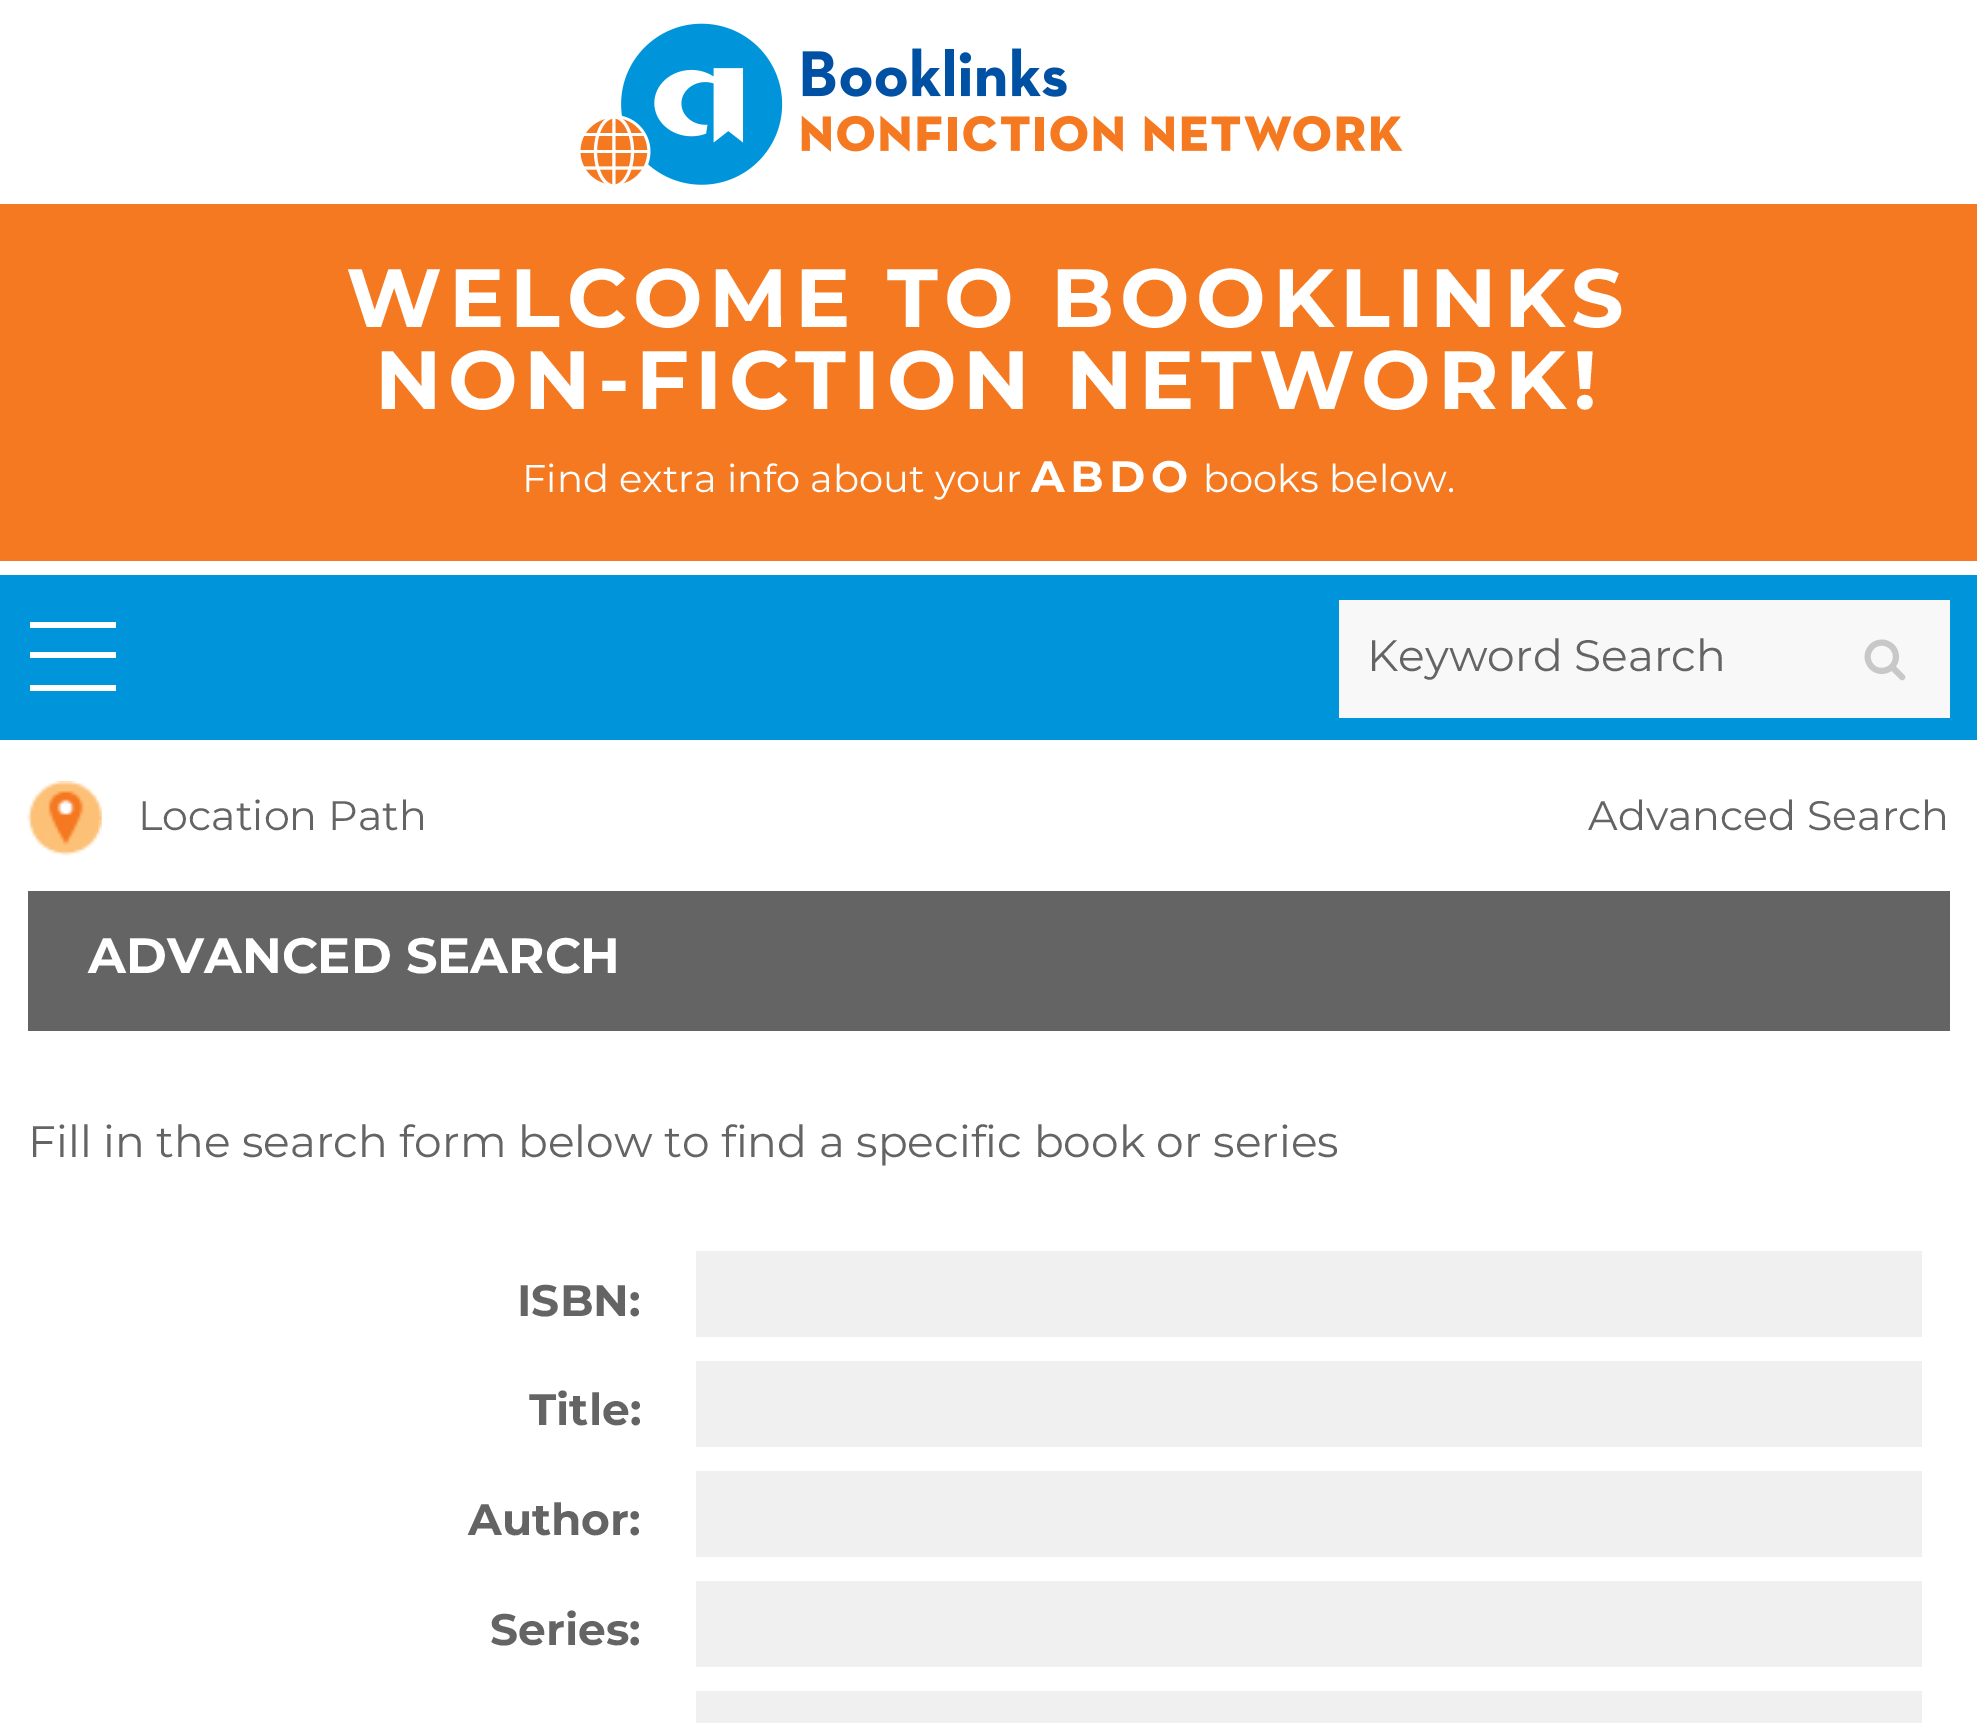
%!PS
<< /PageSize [1977 1723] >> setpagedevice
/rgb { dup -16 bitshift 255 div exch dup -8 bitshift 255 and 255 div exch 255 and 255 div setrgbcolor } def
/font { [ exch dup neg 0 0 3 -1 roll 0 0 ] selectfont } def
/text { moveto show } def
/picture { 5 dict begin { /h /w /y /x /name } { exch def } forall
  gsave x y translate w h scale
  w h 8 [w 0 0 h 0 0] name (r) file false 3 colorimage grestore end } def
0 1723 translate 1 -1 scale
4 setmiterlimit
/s1 { /Montserrat-Regular 38.5 font 16#FFFFFF rgb } def
/s2 { /Montserrat-Regular 44 font 16#646464 rgb } def
/s3 { /Montserrat-Regular 41.25 font 16#646464 rgb } def
/s4 { /Montserrat-Bold 49.5 font 16#FFFFFF rgb } def
/s5 { /Montserrat-Bold 44 font 16#646464 rgb } def
16#FFFFFF rgb
0 0 1977 1723 rectfill
(pic1.raw) 580 23 823 162 picture
16#F47920 rgb
0 204 1977 357 rectfill
/Montserrat-Bold 82.5 font
16#FFFFFF rgb
346 327 moveto 6.6 0 (WELCOME TO BOOKLINKS) ashow
375 409 moveto 6.6 0 (NON-FICTION NETWORK!) ashow
s1
(Find extra info about your) 522 492 text
/Montserrat-Bold 44 font
1031 492 moveto 5.5 0 (ABDO) ashow
s1
(books below.) 1203 492 text
16#0095DA rgb
0 575 1977 165 rectfill
16#FFFFFF rgb
30 622 86 6 rectfill
30 652 86 6 rectfill
30 685 86 6 rectfill
16#F8F8F8 rgb
1339 600 611 118 rectfill
s2
(Keyword Search) 1367 671 text
(pic2.raw) 1864 639 42 42 picture
(pic3.raw) 27 781 75 75 picture
s3
(Location Path) 138 830 text
(Advanced Search) 1588 830 text
28 891 1922 140 rectfill
s4
(ADVANCED SEARCH) 88 973 text
s2
(Fill in the search form below to find a specific book or series) 28 1157 text
s5
(ISBN:) 517 1316 text
16#F0F0F0 rgb
696 1251 1226 86 rectfill
s5
(Title:) 529 1425 text
16#F0F0F0 rgb
696 1361 1226 86 rectfill
s5
(Author:) 468 1535 text
16#F0F0F0 rgb
696 1471 1226 86 rectfill
s5
(Series:) 490 1645 text
16#F0F0F0 rgb
696 1581 1226 86 rectfill
696 1691 1226 32 rectfill
showpage
